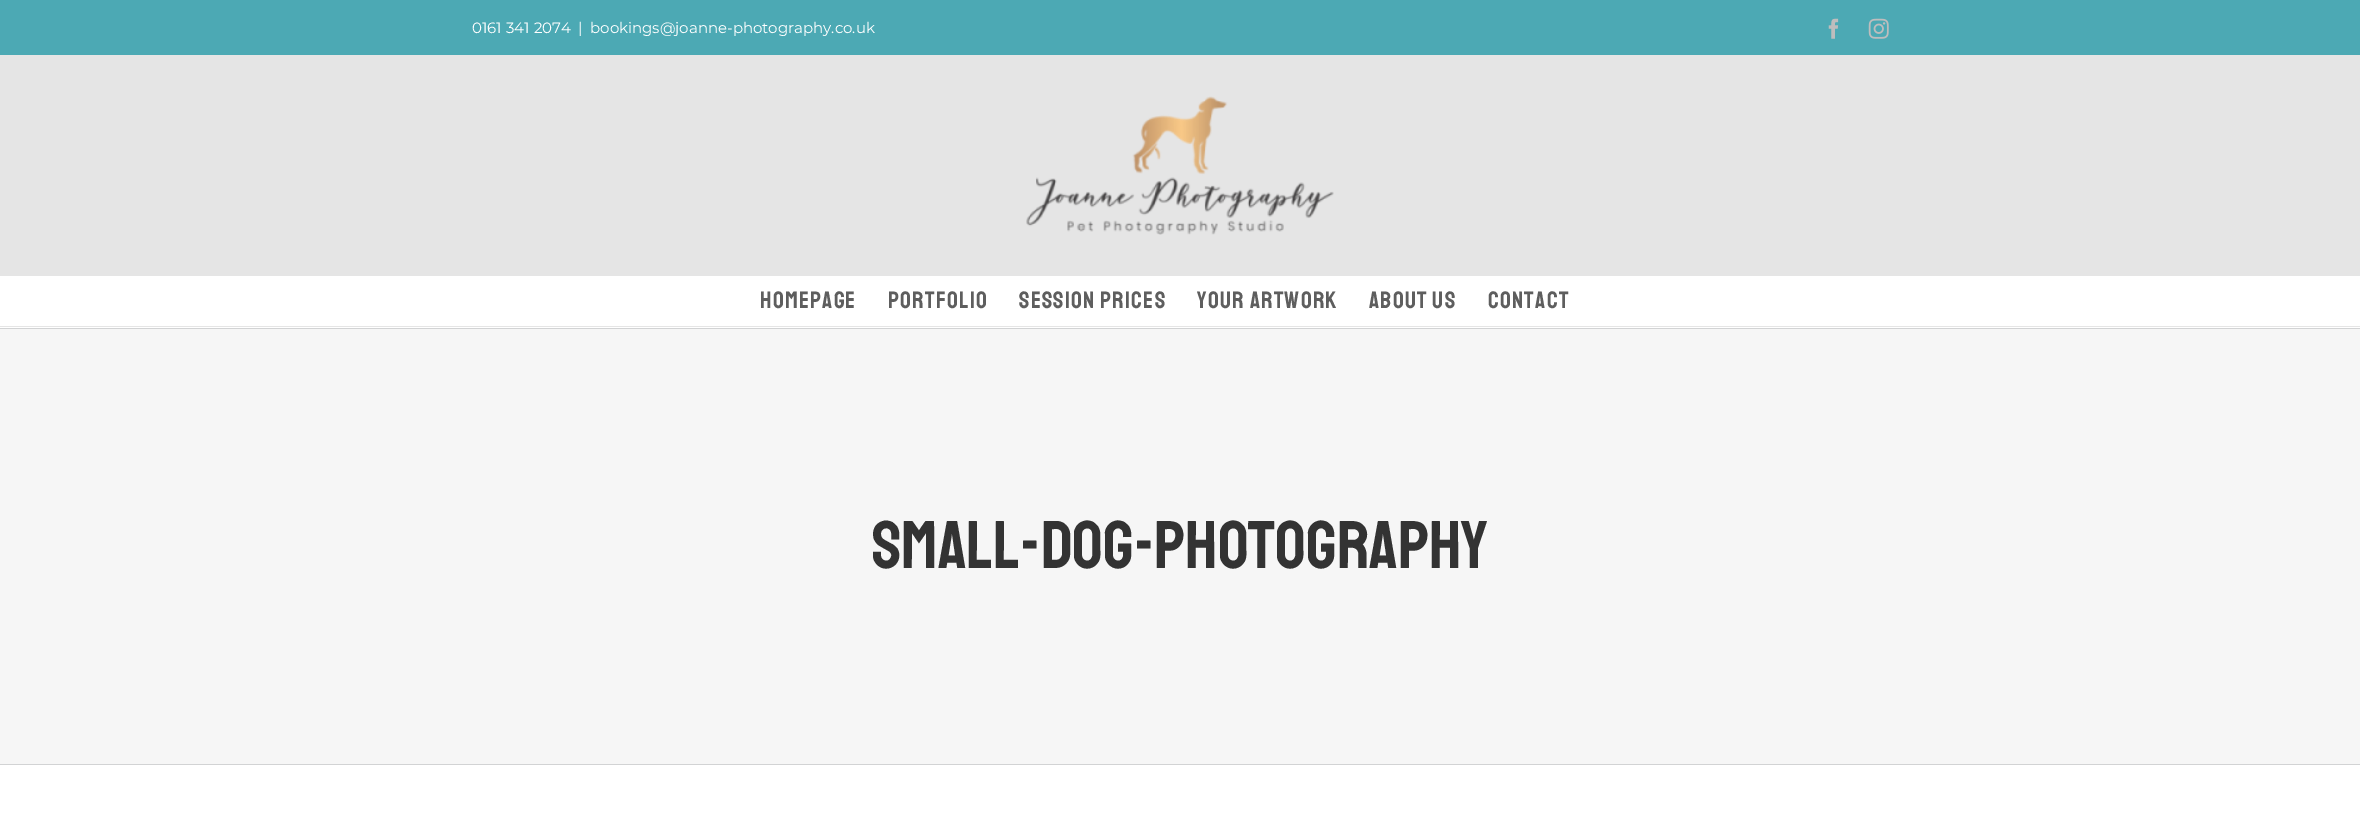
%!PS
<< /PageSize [2360 840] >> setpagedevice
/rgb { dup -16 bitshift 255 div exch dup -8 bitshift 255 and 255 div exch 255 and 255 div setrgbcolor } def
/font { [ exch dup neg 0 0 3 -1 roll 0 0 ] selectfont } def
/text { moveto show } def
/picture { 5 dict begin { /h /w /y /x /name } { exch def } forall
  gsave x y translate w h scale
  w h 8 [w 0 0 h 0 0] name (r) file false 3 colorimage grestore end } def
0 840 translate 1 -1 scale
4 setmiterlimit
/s1 { /Montserrat-Regular 15 font 16#FFFFFF rgb } def
/s2 { /Staatliches-Regular 67.5 font 16#333333 rgb } def
16#FFFFFF rgb
0 0 2360 840 rectfill
16#4CA9B4 rgb
0 0 2360 55 rectfill
16#E5E5E5 rgb
0 55 2360 221 rectfill
s1
(0161 341 2074) 472 33 text
(|) 578 33 text
(bookings@joanne-photography.co.uk) 590 33 text
(pic1.raw) 1828 18 11 21 picture
(pic2.raw) 1868 18 21 21 picture
(pic3.raw) 1026 96 308 139 picture
16#E5E5E5 rgb
0 326 2360 1 rectfill
/Staatliches-Regular 23.75 font
16#5E5E5E rgb
760 308 moveto 1.25 0 (Homepage) ashow
888 308 moveto 1.25 0 (Portfolio) ashow
1019 308 moveto 1.25 0 (Session Prices) ashow
1197 308 moveto 1.25 0 (Your Artwork) ashow
1369 308 moveto 1.25 0 (About Us) ashow
1488 308 moveto 1.25 0 (Contact) ashow
16#F6F6F6 rgb
0 329 2360 435 rectfill
16#D2D3D4 rgb
0 328 2360 1 rectfill
0 764 2360 1 rectfill
s2
(small-dog-photography) 872 568 text
showpage
